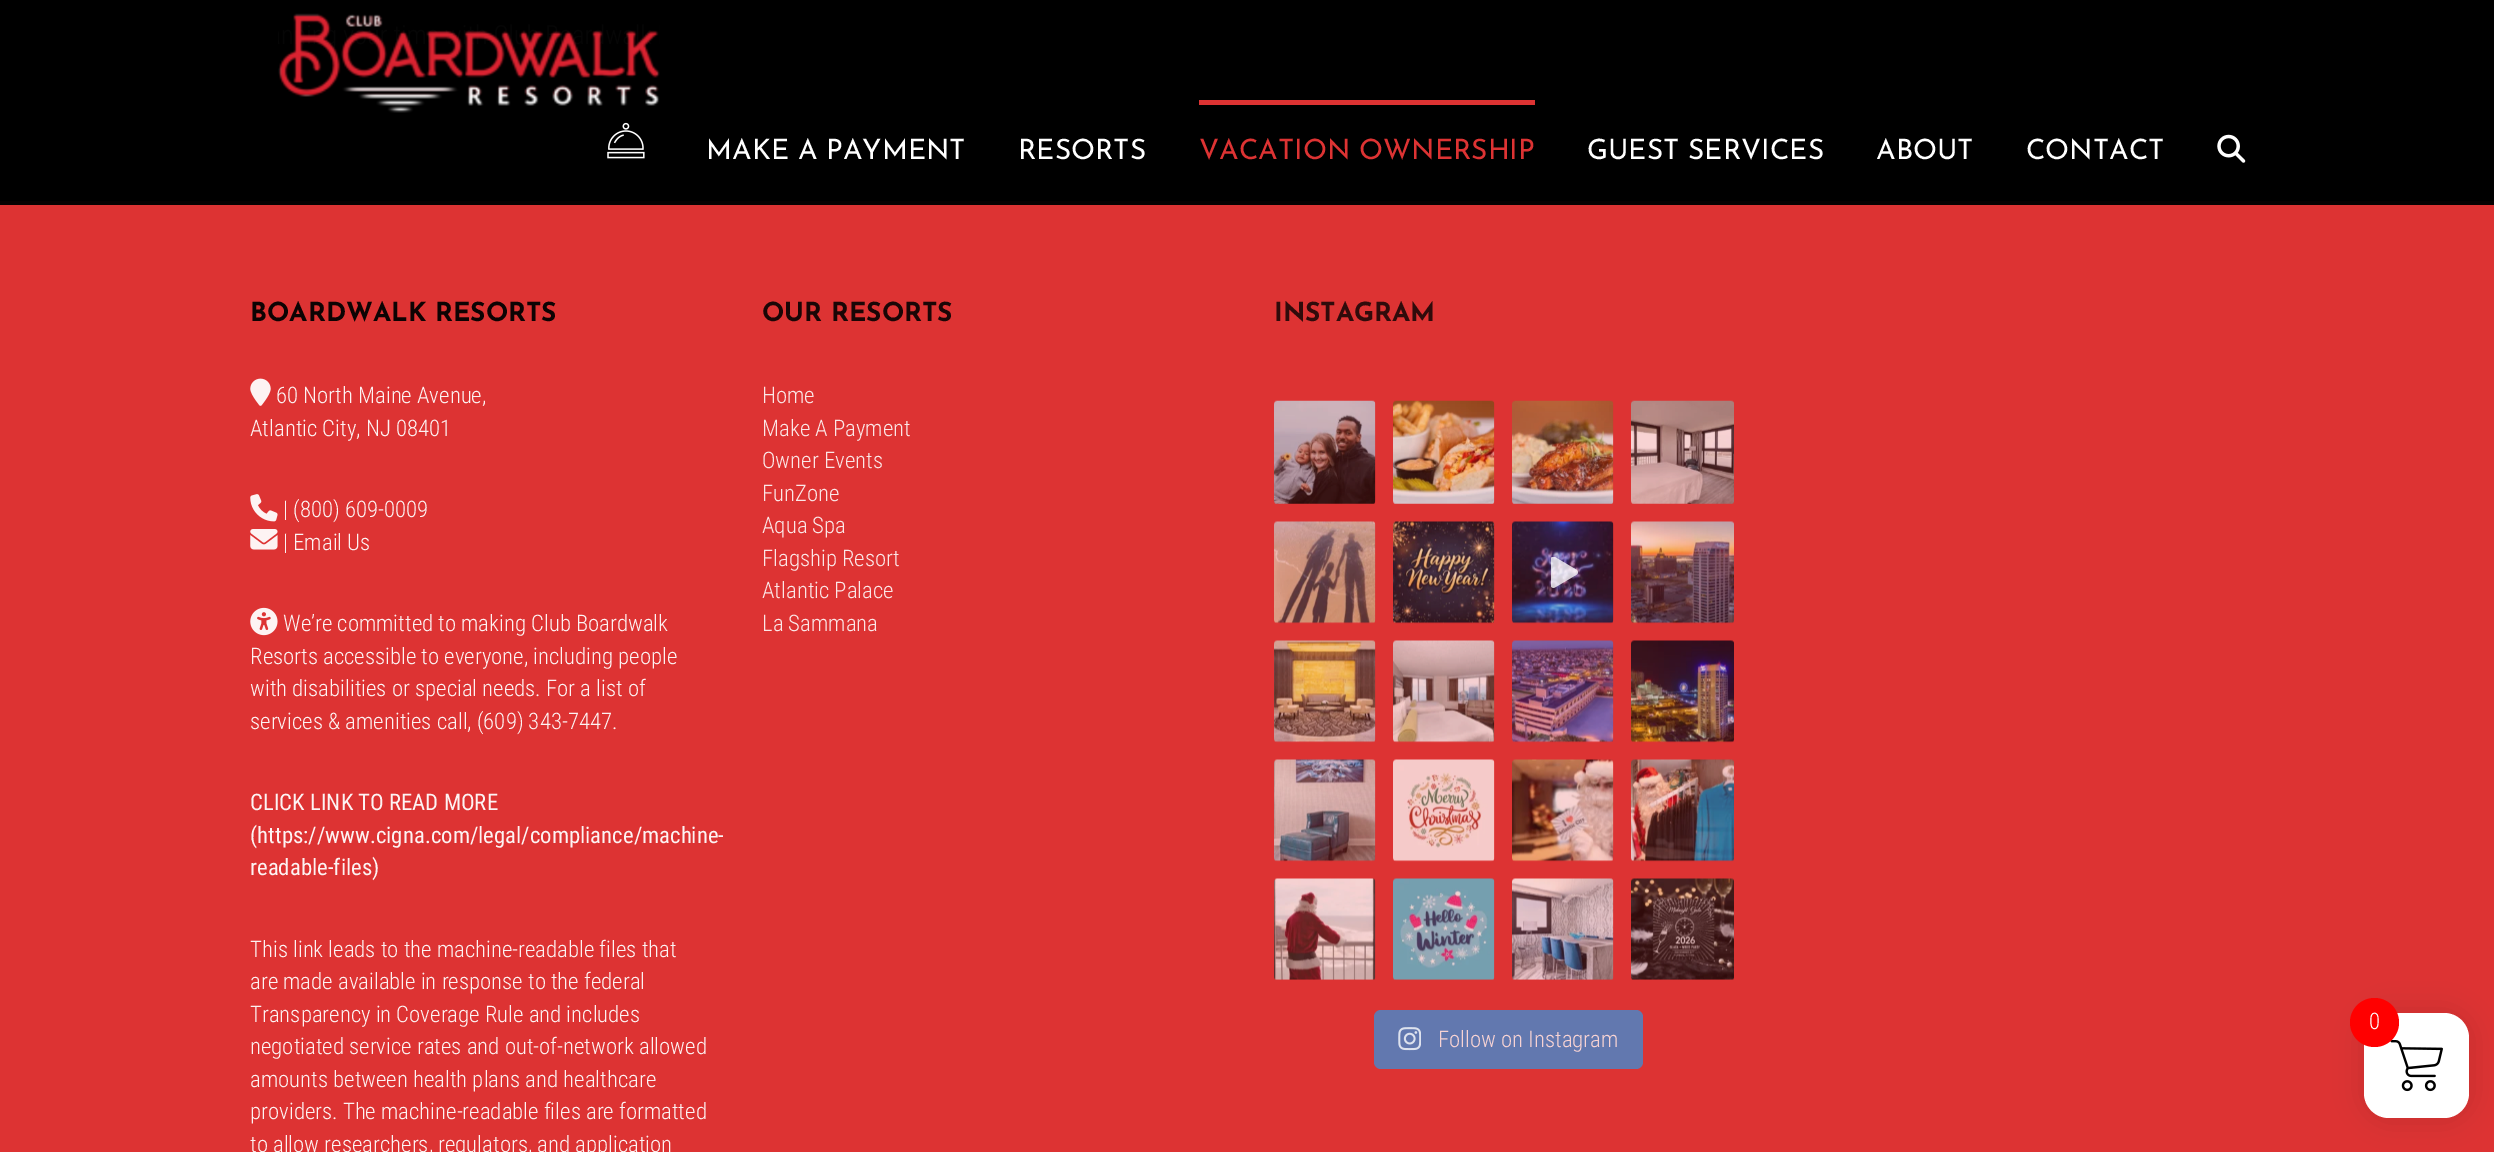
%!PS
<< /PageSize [2494 1152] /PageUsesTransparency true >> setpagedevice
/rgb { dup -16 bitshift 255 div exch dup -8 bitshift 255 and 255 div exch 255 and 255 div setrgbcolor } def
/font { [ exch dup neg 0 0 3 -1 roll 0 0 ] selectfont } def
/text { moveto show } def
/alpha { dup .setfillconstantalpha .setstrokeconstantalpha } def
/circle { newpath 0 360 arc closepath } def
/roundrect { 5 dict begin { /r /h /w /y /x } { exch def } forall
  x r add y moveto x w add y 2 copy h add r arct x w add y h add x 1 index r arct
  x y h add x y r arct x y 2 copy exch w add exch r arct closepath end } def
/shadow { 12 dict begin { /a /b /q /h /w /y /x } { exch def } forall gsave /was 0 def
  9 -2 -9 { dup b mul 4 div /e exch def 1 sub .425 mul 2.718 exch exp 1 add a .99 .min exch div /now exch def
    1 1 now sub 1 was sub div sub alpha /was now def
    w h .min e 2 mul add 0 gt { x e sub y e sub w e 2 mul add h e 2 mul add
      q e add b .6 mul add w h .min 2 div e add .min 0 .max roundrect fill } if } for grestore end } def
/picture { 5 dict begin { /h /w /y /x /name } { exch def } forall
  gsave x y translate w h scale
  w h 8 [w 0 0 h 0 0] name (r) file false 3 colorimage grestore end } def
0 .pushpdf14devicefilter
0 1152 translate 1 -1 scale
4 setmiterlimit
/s1 { /JosefinSans-Regular 28 font 16#FFFFFF rgb } def
/s2 { /JosefinSans-Regular 28 font 16#DD3333 rgb } def
/s3 { /JosefinSans-Bold 26.25 font 16#0D0303 rgb } def
/s4 { /RobotoCondensed-Light 22.75 font 16#FDF3F3 rgb } def
/s5 { /RobotoCondensed-Regular 22.75 font 16#FDF3F3 rgb } def
/s6 { /JosefinSans-Bold 26.25 font 16#1A0606 rgb } def
/s7 { /RobotoCondensed-Light 22.75 font 16#FBE7E7 rgb } def
/s8 { /JosefinSans-Bold 26.25 font 16#300B0B rgb } def
/s9 { /RobotoCondensed-Light 22.75 font 16#F8D3D3 rgb } def
/s10 { /RobotoCondensed-Light 22.75 font 16#FFFFFF rgb } def
16#0A0A0A rgb
0 0 2494 1152 rectfill
16#DD3333 rgb
0 201 2494 951 rectfill
0.97 alpha
16#000000 rgb
0 0 2494 205 rectfill
1 alpha
(pic1.raw) 278 13 382 100 picture
(pic2.raw) 607 122 38 37 picture
s1
(MAKE A PAYMENT) 706 159 text
(RESORTS) 1018 159 text
16#DD3333 rgb
1199 100 336 5 rectfill
(VACATION OWNERSHIP) 1199 159 text
s1
(GUEST SERVICES) 1587 159 text
(ABOUT) 1876 159 text
(CONTACT) 2026 159 text
(pic3.raw) 2217 134 29 29 picture
s3
(BOARDWALK RESORTS) 250 321 text
(pic4.raw) 250 378 21 28 picture
s4
(60 North Maine Avenue,) 276 403 text
(Atlantic City, NJ 08401) 250 436 text
(pic5.raw) 250 494 28 28 picture
(| \(800\) 609-0009) 283 517 text
(pic6.raw) 250 529 28 21 picture
(| Email Us) 283 550 text
(pic7.raw) 250 607 28 29 picture
(We’re committed to making Club Boardwalk) 283 631 text
(Resorts accessible to everyone, including people) 250 664 text
(with disabilities or special needs. For a list of) 250 696 text
(services & amenities call, \(609\) 343-7447.) 250 729 text
s5
(CLICK LINK TO READ MORE) 250 810 text
(\(https://www.cigna.com/legal/compliance/machine-) 250 843 text
(readable-files\)) 250 875 text
s4
(This link leads to the machine-readable files that) 250 957 text
(are made available in response to the federal) 250 989 text
(Transparency in Coverage Rule and includes) 250 1022 text
(negotiated service rates and out-of-network allowed) 250 1054 text
(amounts between health plans and healthcare) 250 1087 text
(providers. The machine-readable files are formatted) 250 1119 text
(to allow researchers, regulators, and application) 250 1152 text
s6
(OUR RESORTS) 762 321 text
s7
(Home) 762 403 text
(Make A Payment) 762 436 text
(Owner Events) 762 468 text
(FunZone) 762 501 text
(Aqua Spa) 762 533 text
(Flagship Resort) 762 566 text
(Atlantic Palace) 762 598 text
(La Sammana) 762 631 text
s8
(INSTAGRAM) 1274 321 text
(pic8.raw) 1274 400 102 104 picture
(pic9.raw) 1393 400 102 104 picture
(pic10.raw) 1512 400 102 104 picture
(pic11.raw) 1631 400 103 104 picture
(pic12.raw) 1274 521 102 103 picture
(pic13.raw) 1393 521 102 103 picture
(pic14.raw) 1512 521 102 103 picture
(pic15.raw) 1551 557 27 31 picture
(pic16.raw) 1631 521 103 103 picture
(pic17.raw) 1274 640 102 103 picture
(pic18.raw) 1393 640 102 103 picture
(pic19.raw) 1512 640 102 103 picture
(pic20.raw) 1631 640 103 103 picture
(pic21.raw) 1274 759 102 103 picture
(pic22.raw) 1393 759 102 103 picture
(pic23.raw) 1512 759 102 103 picture
(pic24.raw) 1631 759 103 103 picture
(pic25.raw) 1274 878 102 102 picture
(pic26.raw) 1393 878 102 102 picture
(pic27.raw) 1512 878 102 102 picture
(pic28.raw) 1631 878 103 102 picture
16#6278AF rgb
1374 1010 269 59 7 roundrect fill
(pic29.raw) 1398 1027 23 24 picture
s9
(Follow on Instagram) 1438 1047 text
16#000000 rgb
2361 1010 112 112 28 13 0.1 shadow
16#FFFFFF rgb
2364 1013 105 105 25 roundrect fill
(pic30.raw) 2390 1040 53 52 picture
16#FF0000 rgb
2374.5 1022.5 24.5 circle fill
s10
(0) 2369 1029 text
.poppdf14devicefilter showpage
